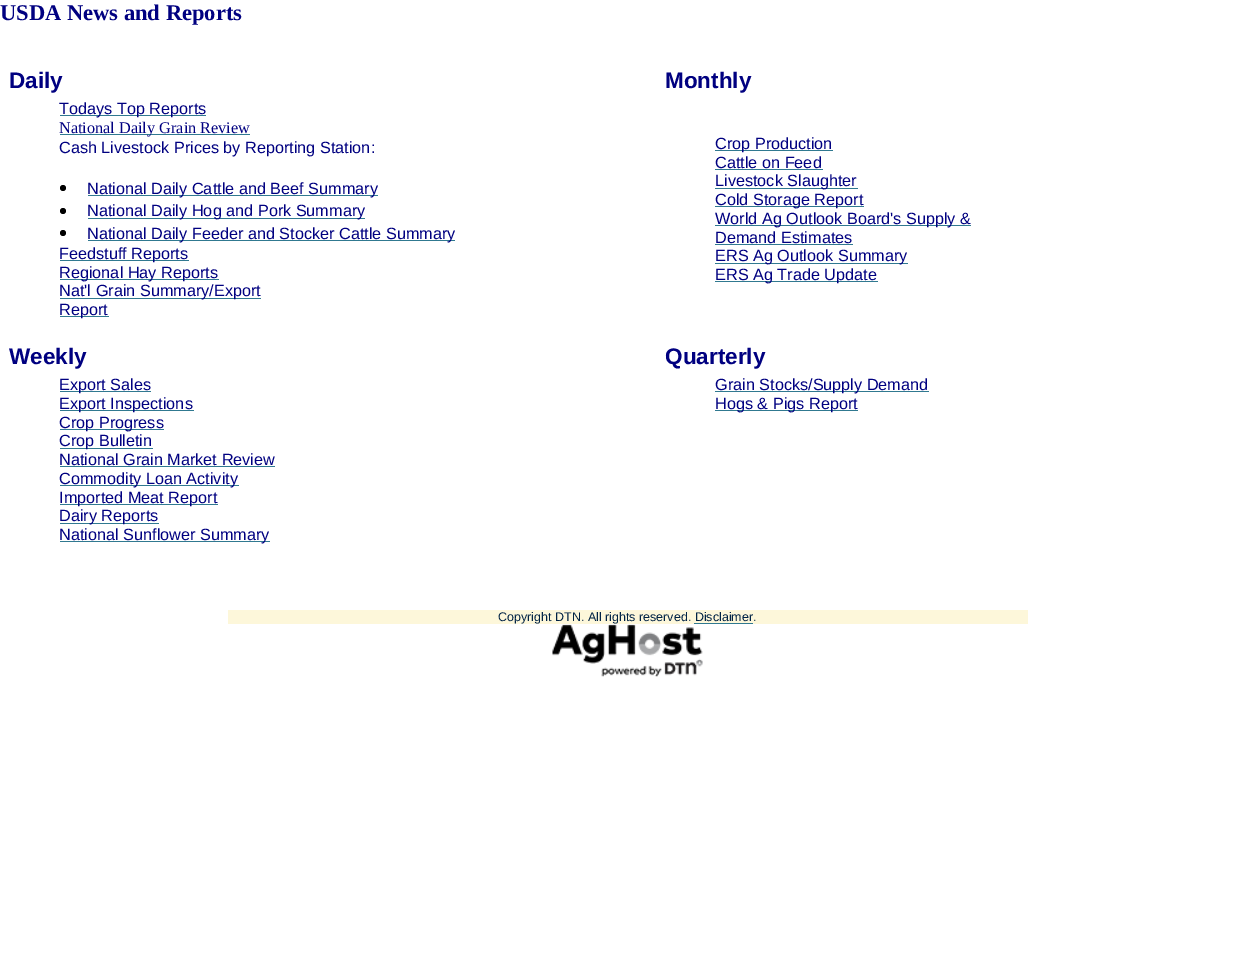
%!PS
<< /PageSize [1253 961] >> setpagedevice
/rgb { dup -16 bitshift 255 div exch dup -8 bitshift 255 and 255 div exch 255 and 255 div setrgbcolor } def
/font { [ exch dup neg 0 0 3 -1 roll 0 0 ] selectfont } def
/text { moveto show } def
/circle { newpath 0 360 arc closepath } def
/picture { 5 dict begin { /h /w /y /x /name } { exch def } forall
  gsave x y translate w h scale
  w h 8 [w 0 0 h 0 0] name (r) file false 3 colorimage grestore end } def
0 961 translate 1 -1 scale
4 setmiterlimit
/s1 { /LiberationSerif-Bold 22.5 font 16#000080 rgb } def
/s2 { /LiberationSans-Bold 22.5 font 16#000080 rgb } def
/s3 { /LiberationSans-Regular 16.25 font 16#000080 rgb } def
/s4 { /LiberationSerif-Regular 16.25 font 16#000080 rgb } def
/s5 { /LiberationSans-Regular 12.5 font 16#002245 rgb } def
16#FFFFFF rgb
0 0 1253 961 rectfill
s1
(USDA News and Reports) 0 20 text
s2
(Daily) 9 88 text
(Monthly) 665 88 text
16#307990 rgb
60 115 146 1 rectfill
s3
(Todays Top Reports) 59 114 text
16#307990 rgb
60 134 190 1 rectfill
s4
(National Daily Grain Review) 59 133 text
s3
(Cash Livestock Prices by Reporting Station:) 59 153 text
16#000000 rgb
63 188 3 circle fill
16#307990 rgb
88 195 290 1 rectfill
s3
(National Daily Cattle and Beef Summary) 87 194 text
16#000000 rgb
63 211 3 circle fill
16#307990 rgb
88 218 277 1 rectfill
s3
(National Daily Hog and Pork Summary) 87 216 text
16#000000 rgb
63 233 3 circle fill
16#307990 rgb
88 240 367 1 rectfill
s3
(National Daily Feeder and Stocker Cattle Summary) 87 239 text
16#307990 rgb
60 260 129 1 rectfill
s3
(Feedstuff Reports) 59 259 text
16#307990 rgb
60 279 159 1 rectfill
s3
(Regional Hay Reports) 59 278 text
16#307990 rgb
60 298 201 1 rectfill
s3
(Nat'l Grain Summary/Export) 59 296 text
16#307990 rgb
60 316 49 1 rectfill
s3
(Report) 59 315 text
16#307990 rgb
715 150 118 1 rectfill
s3
(Crop Production) 715 149 text
(Cattle on Feed) 715 168 text
16#307990 rgb
715 169 108 1 rectfill
715 188 143 1 rectfill
s3
(Livestock Slaughter) 715 186 text
16#307990 rgb
715 206 149 1 rectfill
s3
(Cold Storage Report) 715 205 text
16#307990 rgb
715 225 256 1 rectfill
s3
(World Ag Outlook Board's Supply &) 715 224 text
(Demand Estimates) 715 243 text
16#307990 rgb
715 244 138 1 rectfill
715 263 193 1 rectfill
s3
(ERS Ag Outlook Summary) 715 261 text
16#307990 rgb
715 281 163 1 rectfill
s3
(ERS Ag Trade Update) 715 280 text
s2
(Weekly) 9 364 text
(Quarterly) 665 364 text
16#307990 rgb
60 391 91 1 rectfill
s3
(Export Sales) 59 390 text
16#307990 rgb
60 410 134 1 rectfill
s3
(Export Inspections) 59 409 text
16#307990 rgb
60 429 104 1 rectfill
s3
(Crop Progress) 59 428 text
16#307990 rgb
60 448 93 1 rectfill
s3
(Crop Bulletin) 59 446 text
(National Grain Market Review) 59 465 text
16#307990 rgb
60 466 215 1 rectfill
60 485 179 1 rectfill
s3
(Commodity Loan Activity) 59 484 text
16#307990 rgb
60 504 158 1 rectfill
s3
(Imported Meat Report) 59 503 text
16#307990 rgb
60 523 99 1 rectfill
s3
(Dairy Reports) 59 521 text
16#307990 rgb
60 541 210 1 rectfill
s3
(National Sunflower Summary) 59 540 text
16#307990 rgb
715 391 214 1 rectfill
s3
(Grain Stocks/Supply Demand) 715 390 text
16#307990 rgb
715 410 143 1 rectfill
s3
(Hogs & Pigs Report) 715 409 text
16#FDF7DA rgb
228 610 800 14 rectfill
s5
(Copyright DTN. All rights reserved. Disclaimer.) 498 621 text
16#307990 rgb
694 623 59 1 rectfill
(pic1.raw) 552 624 151 53 picture
showpage
